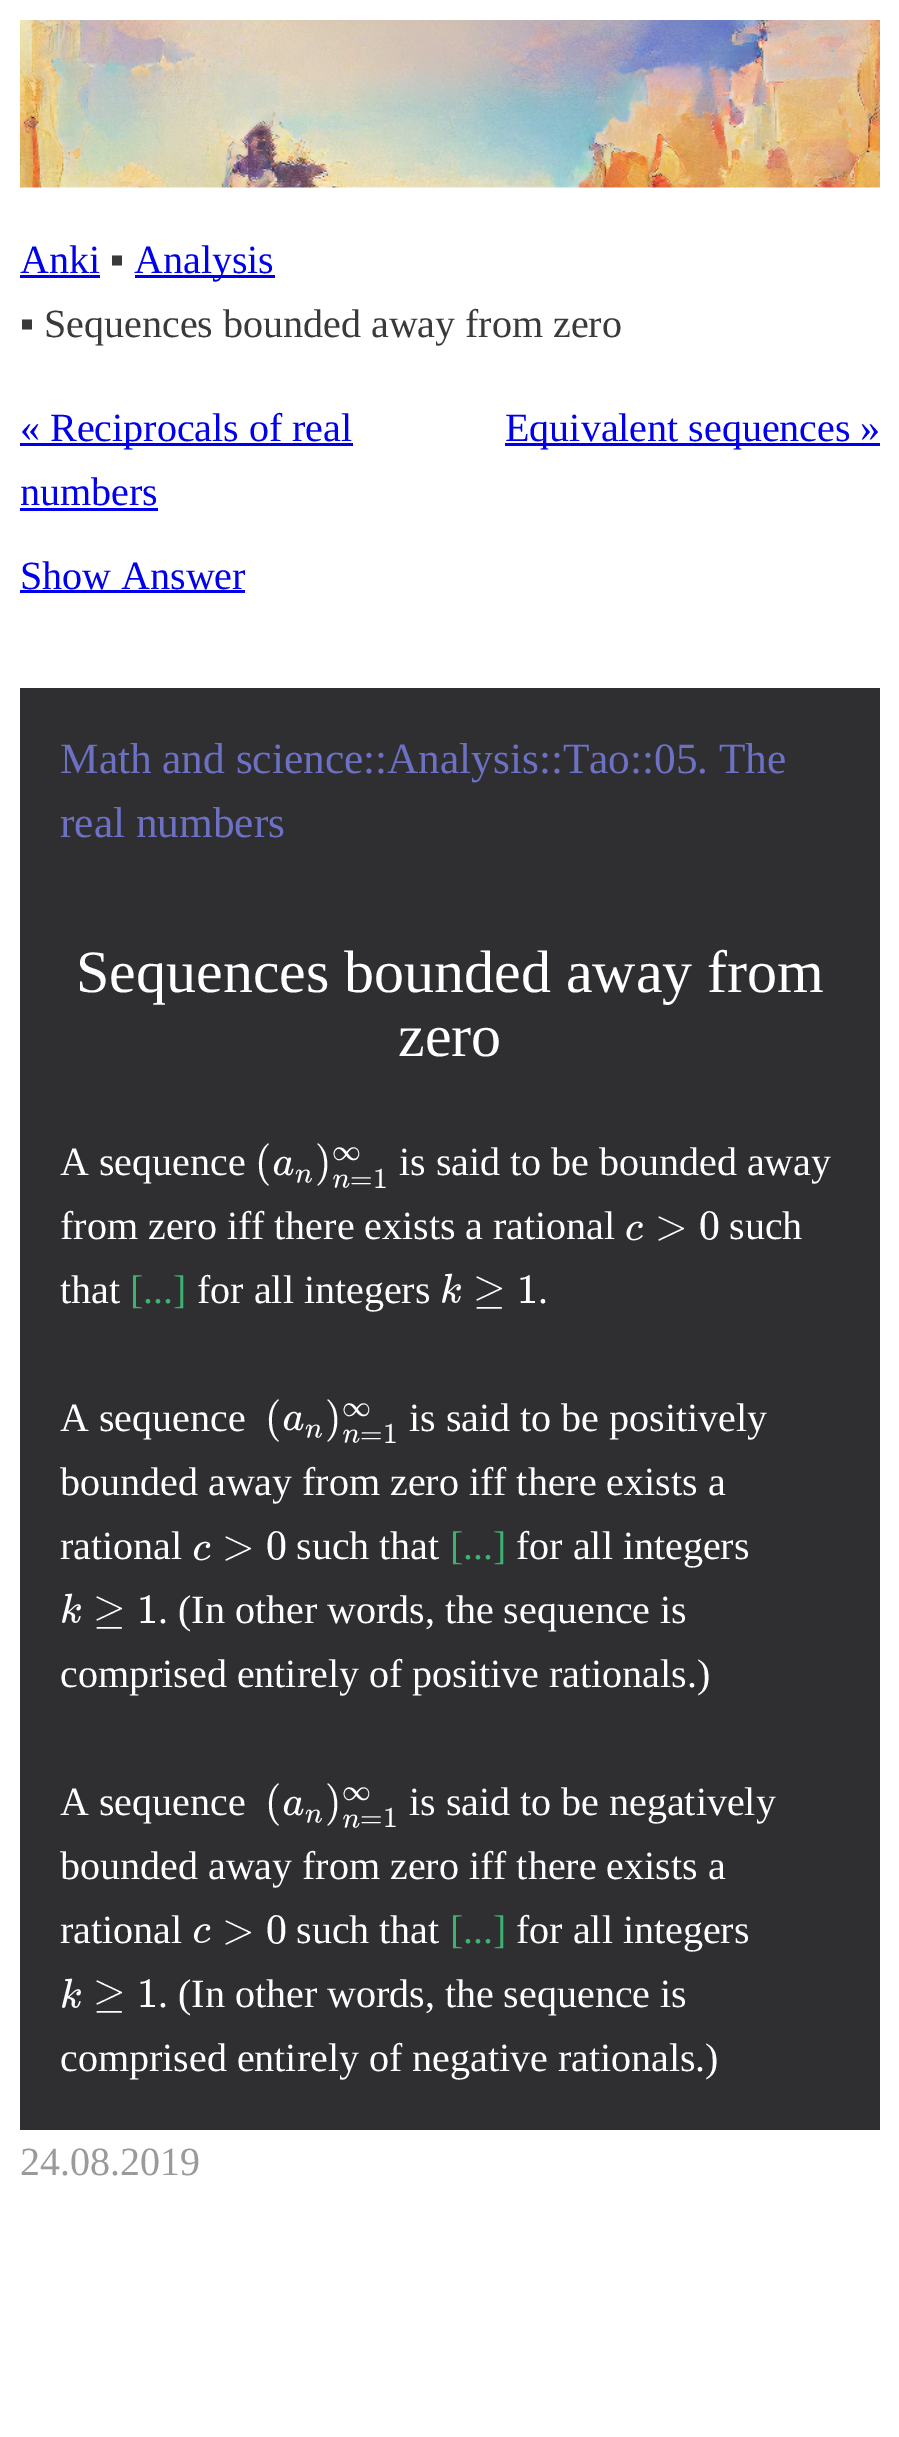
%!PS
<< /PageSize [899 2437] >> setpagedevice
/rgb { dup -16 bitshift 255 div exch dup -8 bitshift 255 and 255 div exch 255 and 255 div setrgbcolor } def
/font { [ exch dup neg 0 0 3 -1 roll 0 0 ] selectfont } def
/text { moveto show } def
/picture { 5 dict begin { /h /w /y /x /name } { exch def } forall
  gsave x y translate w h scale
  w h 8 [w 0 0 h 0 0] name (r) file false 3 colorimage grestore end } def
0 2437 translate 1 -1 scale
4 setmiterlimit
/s1 { /LiberationSerif-Regular 40 font 16#0000EE rgb } def
/s2 { /LiberationSerif-Regular 40 font 16#3A3A3A rgb } def
/s3 { /LiberationSerif-Regular 43.3 font 16#6C71C4 rgb } def
/s4 { /LiberationSerif-Regular 60 font 16#FFFFFF rgb } def
/s5 { /LiberationSerif-Regular 40 font 16#FFFFFF rgb } def
/s6 { /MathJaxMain-Regular 42 font 16#FFFFFF rgb } def
/s7 { /MathJaxMain-Regular 29 font 16#FFFFFF rgb } def
/s8 { /LiberationSerif-Regular 40 font 16#3CB371 rgb } def
/s9 { /LiberationSerif-Regular 40 font 16#9A9A9A rgb } def
16#FFFFFF rgb
0 0 899 2437 rectfill
(pic1.raw) 20 20 860 168 picture
s1
(Anki) 20 273 text
20 275 80 3 rectfill
s2
(▪) 110 273 text
16#0000EE rgb
135 275 140 3 rectfill
(Analysis) 134 273 text
s2
(▪ Sequences bounded away from zero) 20 337 text
16#0000EE rgb
20 443 333 3 rectfill
(« Reciprocals of real) 20 441 text
(numbers) 20 505 text
20 508 138 3 rectfill
505 443 375 3 rectfill
(Equivalent sequences ») 505 441 text
(Show Answer) 20 589 text
20 590 225 3 rectfill
16#2F2F31 rgb
20 688 860 1442 rectfill
s3
(Math and science::Analysis::Tao::05. The) 60 773 text
(real numbers) 60 837 text
s4
(Sequences bounded away from) 76 992 text
(zero) 398 1056 text
s5
(A sequence) 60 1175 text
s6
(\() 255 1175 text
(pic2.raw) 273 1156 21 20 picture
(pic3.raw) 295 1169 17 14 picture
(\)) 315 1175 text
s7
(∞) 332 1160 text
(pic4.raw) 333 1174 17 14 picture
(=1) 350 1188 text
s5
(is said to be bounded away) 399 1175 text
(from zero iff there exists a rational) 60 1239 text
(pic5.raw) 626 1221 17 20 picture
s6
(>) 655 1239 text
(0) 699 1239 text
s5
(such) 729 1239 text
(that) 60 1303 text
s8
([...]) 130 1303 text
s5
(for all integers) 197 1303 text
(pic6.raw) 442 1273 19 30 picture
s6
(≥) 473 1303 text
(1) 517 1303 text
s5
(.) 538 1303 text
(A sequence) 60 1431 text
s6
(\() 265 1431 text
(pic2.raw) 283 1411 21 20 picture
(pic3.raw) 305 1424 17 14 picture
(\)) 325 1431 text
s7
(∞) 342 1416 text
(pic4.raw) 343 1429 17 14 picture
(=1) 360 1443 text
s5
(is said to be positively) 409 1431 text
(bounded away from zero iff there exists a) 60 1495 text
(rational) 60 1559 text
(pic7.raw) 193 1541 18 20 picture
s6
(>) 222 1559 text
(0) 266 1559 text
s5
(such that) 296 1559 text
s8
([...]) 450 1559 text
s5
(for all integers) 516 1559 text
(pic6.raw) 62 1593 19 30 picture
s6
(≥) 93 1623 text
(1) 137 1623 text
s5
(. \(In other words, the sequence is) 158 1623 text
(comprised entirely of positive rationals.\)) 60 1687 text
(A sequence) 60 1815 text
s6
(\() 265 1815 text
(pic2.raw) 283 1796 21 20 picture
(pic3.raw) 305 1809 17 14 picture
(\)) 325 1815 text
s7
(∞) 342 1800 text
(pic4.raw) 343 1814 17 14 picture
(=1) 360 1827 text
s5
(is said to be negatively) 409 1815 text
(bounded away from zero iff there exists a) 60 1879 text
(rational) 60 1943 text
(pic8.raw) 193 1924 18 19 picture
s6
(>) 222 1943 text
(0) 266 1943 text
s5
(such that) 296 1943 text
s8
([...]) 450 1943 text
s5
(for all integers) 516 1943 text
(pic6.raw) 62 1978 19 30 picture
s6
(≥) 93 2007 text
(1) 137 2007 text
s5
(. \(In other words, the sequence is) 158 2007 text
(comprised entirely of negative rationals.\)) 60 2071 text
s9
(24.08.2019) 20 2175 text
showpage
